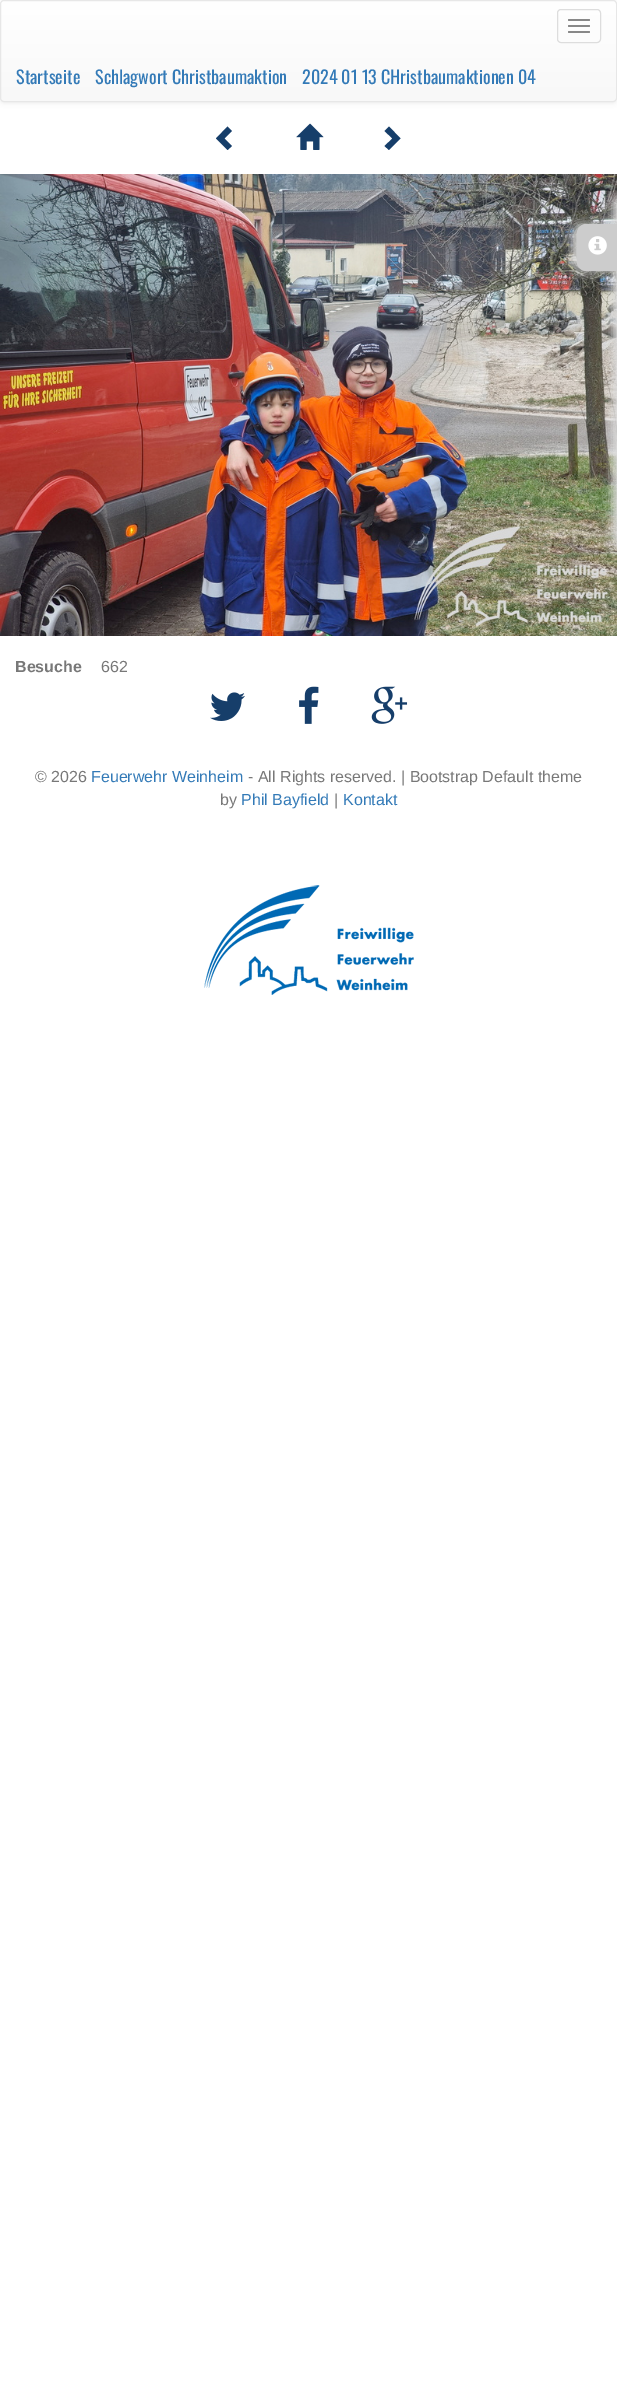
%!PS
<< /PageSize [617 2402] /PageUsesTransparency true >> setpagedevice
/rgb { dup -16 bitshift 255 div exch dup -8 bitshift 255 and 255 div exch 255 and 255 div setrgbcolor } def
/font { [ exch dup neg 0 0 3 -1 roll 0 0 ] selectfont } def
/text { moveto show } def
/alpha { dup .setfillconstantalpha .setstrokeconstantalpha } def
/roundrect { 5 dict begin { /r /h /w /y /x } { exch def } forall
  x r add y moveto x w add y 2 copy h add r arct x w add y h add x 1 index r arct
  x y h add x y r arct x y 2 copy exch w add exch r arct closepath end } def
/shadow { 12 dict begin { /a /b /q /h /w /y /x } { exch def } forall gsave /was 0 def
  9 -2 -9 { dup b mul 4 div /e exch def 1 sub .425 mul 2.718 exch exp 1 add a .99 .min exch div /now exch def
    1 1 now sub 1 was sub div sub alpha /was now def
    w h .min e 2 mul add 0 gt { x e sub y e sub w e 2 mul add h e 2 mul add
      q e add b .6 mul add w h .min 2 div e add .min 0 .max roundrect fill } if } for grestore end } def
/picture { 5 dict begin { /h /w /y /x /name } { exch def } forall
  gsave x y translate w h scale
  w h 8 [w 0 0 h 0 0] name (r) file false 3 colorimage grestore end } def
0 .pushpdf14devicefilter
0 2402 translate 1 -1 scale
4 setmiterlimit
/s1 { /Oswald-Regular 18 font 16#337AB7 rgb } def
/s2 { /LiberationSans-Bold 16 font 16#787878 rgb } def
/s3 { /LiberationSans-Regular 16 font 16#787878 rgb } def
/s4 { /LiberationSans-Regular 16 font 16#337AB7 rgb } def
16#FFFFFF rgb
0 0 617 2402 rectfill
16#000000 rgb
0 1 617 102 4 2.5 0.07 shadow
gsave
0 0 617 102 4 roundrect clip newpath
gsave 0 1 moveto 617 1 lineto 617 101 lineto 0 101 lineto closepath clip newpath
<< /ShadingType 2 /ColorSpace /DeviceRGB /Coords [309 1 309 101] /Extend [true true] /Function << /FunctionType 2 /Domain [0 1] /C0 [1 1 1] /C1 [0.973 0.973 0.973] /N 1 >> >> shfill grestore
grestore
16#E7E7E7 rgb
0.5 0.5 616 101 3.5 roundrect stroke
16#DDDDDD rgb
557.5 9.5 43 33 3.5 roundrect stroke
16#888888 rgb
568 19 22 2 1 roundrect fill
568 25 22 2 1 roundrect fill
568 31 22 2 1 roundrect fill
s1
(Startseite) 16 84 text
(Schlagwort Christbaumaktion) 95 84 text
(2024 01 13 CHristbaumaktionen 04) 302 84 text
16#163E6A rgb
232 131 moveto 224.5 138.5 lineto 232 146 lineto 227.5 150 lineto 216 138.5 lineto 227.5 126.5 lineto closepath fill
(pic1.raw) 296 123 28 27 picture
400.5 138.5 moveto 389 150 lineto 384.5 146 lineto 392.5 138.5 lineto 384.5 131 lineto 389 126.5 lineto closepath fill
(pic2.raw) 0 174 617 462 picture
16#DDDDDD rgb
612 194 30 355 10 5 1 shadow
572 224 40 47 10 5 1 shadow
16#CCCCCC rgb
587 224 moveto 617 224 lineto 617 271 lineto 587 271 lineto 581.5 271 577 266.5 577 261 curveto 577 234 lineto 577 228.5 581.5 224 587 224 curveto closepath fill
587 224 moveto 617 224 lineto 617 271 lineto 587 271 lineto 581 271 577 267 577 261 curveto 577 234 lineto 577 228 581 224 587 224 curveto closepath 587 225 moveto 617 225 lineto 617 270 lineto 587 270 lineto 582 270 578 266 578 261 curveto 578 234 lineto 578 229 582 225 587 225 curveto closepath eofill
(pic3.raw) 588 236 19 19 picture
s2
(Besuche) 15 672 text
s3
(662) 101 672 text
(pic4.raw) 210 692 35 29 picture
(pic5.raw) 299 686 20 38 picture
(pic6.raw) 371 686 37 38 picture
(© 2026) 35 782 text
s4
(Feuerwehr Weinheim) 91 782 text
s3
(- All Rights reserved. | Bootstrap Default theme) 248 782 text
(by) 220 805 text
s4
(Phil Bayfield) 241 805 text
s3
(|) 334 805 text
s4
(Kontakt) 343 805 text
(pic7.raw) 204 885 210 110 picture
.poppdf14devicefilter showpage
